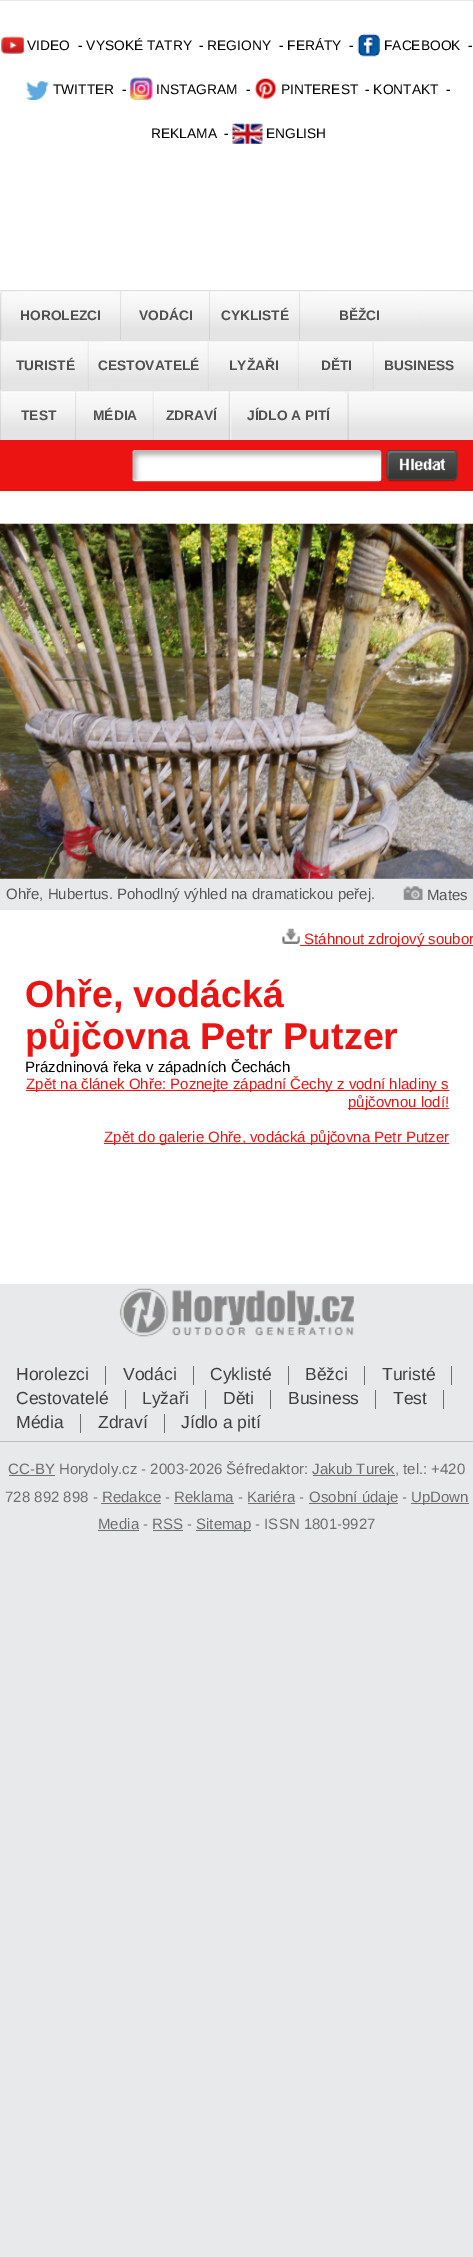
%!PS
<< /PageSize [473 2257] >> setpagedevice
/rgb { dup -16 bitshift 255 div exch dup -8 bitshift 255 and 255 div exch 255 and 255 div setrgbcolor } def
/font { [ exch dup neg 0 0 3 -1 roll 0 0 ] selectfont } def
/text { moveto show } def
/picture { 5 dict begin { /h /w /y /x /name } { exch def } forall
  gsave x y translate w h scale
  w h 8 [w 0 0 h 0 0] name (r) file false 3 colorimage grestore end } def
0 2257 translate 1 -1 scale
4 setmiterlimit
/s1 { /LiberationSans-Regular 13.75 font 16#000000 rgb } def
/s2 { /LiberationSans-Bold 13.75 font 16#504F4F rgb } def
/s3 { /LiberationSans-Regular 15 font 16#555658 rgb } def
/s4 { /LiberationSans-Regular 15 font 16#EC1313 rgb } def
/s5 { /LiberationSans-Bold 37.5 font 16#EC1313 rgb } def
/s6 { /LiberationSans-Regular 15 font 16#000000 rgb } def
/s7 { /LiberationSans-Regular 17.5 font 16#3F3F3F rgb } def
/s8 { /LiberationSans-Regular 15 font 16#6E6E6E rgb } def
16#E7E9EA rgb
0 0 473 2257 rectfill
16#FFFFFF rgb
0 1 473 1283 rectfill
(pic1.raw) 1 36 23 18 picture
s1
(VIDEO) 27 50 text
(- VYSOKÉ TATRY) 78 50 text
(- REGIONY) 199 50 text
(- FERÁTY) 279 50 text
(-) 349 50 text
(pic2.raw) 357 33 23 24 picture
(FACEBOOK) 384 50 text
(-) 468 50 text
(pic3.raw) 26 81 23 19 picture
(TWITTER) 53 94 text
(-) 122 94 text
(pic4.raw) 130 77 23 23 picture
(INSTAGRAM) 156 94 text
(-) 246 94 text
(pic5.raw) 254 77 23 23 picture
(PINTEREST) 281 94 text
(- KONTAKT) 365 94 text
(-) 446 94 text
(REKLAMA) 151 138 text
(-) 224 138 text
(pic6.raw) 232 123 31 21 picture
(ENGLISH) 266 138 text
(pic7.raw) 0 290 473 150 picture
(pic8.raw) 0 291 3 49 picture
s2
(HOROLEZCI) 20 320 text
(pic9.raw) 120 291 2 49 picture
(pic10.raw) 121 291 88 49 picture
(VODÁCI) 139 320 text
(pic11.raw) 209 291 1 49 picture
(pic12.raw) 210 291 89 49 picture
(CYKLISTÉ) 221 320 text
(pic13.raw) 299 291 120 49 picture
(pic14.raw) 300 291 119 49 picture
(BĚŽCI) 339 320 text
(pic15.raw) 0 341 2 49 picture
(pic16.raw) 1 341 87 49 picture
(TURISTÉ) 16 370 text
(pic17.raw) 87 341 120 49 picture
(pic18.raw) 88 341 120 49 picture
(CESTOVATELÉ) 98 370 text
(pic19.raw) 207 341 2 49 picture
(pic20.raw) 208 341 90 49 picture
(LYŽAŘI) 229 370 text
(pic21.raw) 297 341 2 49 picture
(pic22.raw) 298 341 75 49 picture
(DĚTI) 321 370 text
(pic23.raw) 372 341 2 49 picture
(pic24.raw) 373 341 90 49 picture
(BUSINESS) 384 370 text
(pic15.raw) 0 391 2 49 picture
(pic25.raw) 1 391 74 49 picture
(TEST) 21 420 text
(pic9.raw) 75 391 2 49 picture
(pic26.raw) 76 391 77 49 picture
(MÉDIA) 93 420 text
(pic21.raw) 152 391 2 49 picture
(pic22.raw) 153 391 75 49 picture
(ZDRAVÍ) 166 420 text
(pic27.raw) 228 391 121 49 picture
(JÍDLO A PITÍ) 247 420 text
16#EC1313 rgb
0 440 473 51 rectfill
(pic28.raw) 132 450 250 32 picture
(pic29.raw) 386 450 72 32 picture
16#E8E9EB rgb
0 878 473 32 rectfill
(pic30.raw) 0 523 473 356 picture
s3
(Ohře, Hubertus. Pohodlný výhled na dramatickou peřej.) 6 899 text
(pic31.raw) 403 885 20 15 picture
(Mates) 427 900 text
(pic32.raw) 282 928 18 16 picture
16#EC1313 rgb
300 945 173 1 rectfill
(Stáhnout zdrojový soubor) 304 944 text
s5
(Ohře, vodácká) 25 1007 text
(půjčovna Petr Putzer) 25 1049 text
s6
(Prázdninová řeka v západních Čechách) 25 1072 text
16#EC1313 rgb
26 1090 423 1 rectfill
(Zpět na článek Ohře: Poznejte západní Čechy z vodní hladiny s) 26 1089 text
348 1108 101 1 rectfill
(půjčovnou lodí!) 348 1107 text
104 1143 345 1 rectfill
(Zpět do galerie Ohře, vodácká půjčovna Petr Putzer) 104 1142 text
(pic33.raw) 119 1288 235 49 picture
16#6E6E6E rgb
105 1366 1 19 rectfill
s7
(Horolezci) 16 1380 text
16#6E6E6E rgb
193 1366 1 19 rectfill
s7
(Vodáci) 123 1380 text
16#6E6E6E rgb
288 1366 1 19 rectfill
s7
(Cyklisté) 210 1380 text
16#6E6E6E rgb
364 1366 1 19 rectfill
s7
(Běžci) 305 1380 text
16#6E6E6E rgb
451 1366 1 19 rectfill
s7
(Turisté) 382 1380 text
16#6E6E6E rgb
125 1390 1 19 rectfill
s7
(Cestovatelé) 16 1404 text
16#6E6E6E rgb
205 1390 1 19 rectfill
s7
(Lyžaři) 142 1404 text
16#6E6E6E rgb
270 1390 1 19 rectfill
s7
(Děti) 223 1404 text
16#6E6E6E rgb
375 1390 1 19 rectfill
s7
(Business) 288 1404 text
16#6E6E6E rgb
443 1390 1 19 rectfill
s7
(Test) 393 1404 text
16#6E6E6E rgb
80 1414 1 19 rectfill
s7
(Média) 16 1428 text
16#6E6E6E rgb
164 1414 1 19 rectfill
s7
(Zdraví) 98 1428 text
(Jídlo a pití) 181 1428 text
16#BDC0C2 rgb
0 1441 473 1 rectfill
16#6E6E6E rgb
9 1475 46 1 rectfill
s8
(CC-BY Horydoly.cz - 2003-2026 Šéfredaktor: Jakub Turek, tel.: +420) 8 1474 text
313 1475 82 1 rectfill
(728 892 898 - Redakce - Reklama - Kariéra -) 5 1502 text
309 1503 89 1 rectfill
(Osobní údaje -) 309 1502 text
411 1503 58 1 rectfill
(UpDown) 411 1502 text
101 1503 60 1 rectfill
174 1503 60 1 rectfill
248 1503 47 1 rectfill
(Media - RSS -) 98 1529 text
98 1530 41 1 rectfill
196 1530 55 1 rectfill
(Sitemap - ISSN 1801-9927) 196 1529 text
153 1530 30 1 rectfill
showpage
